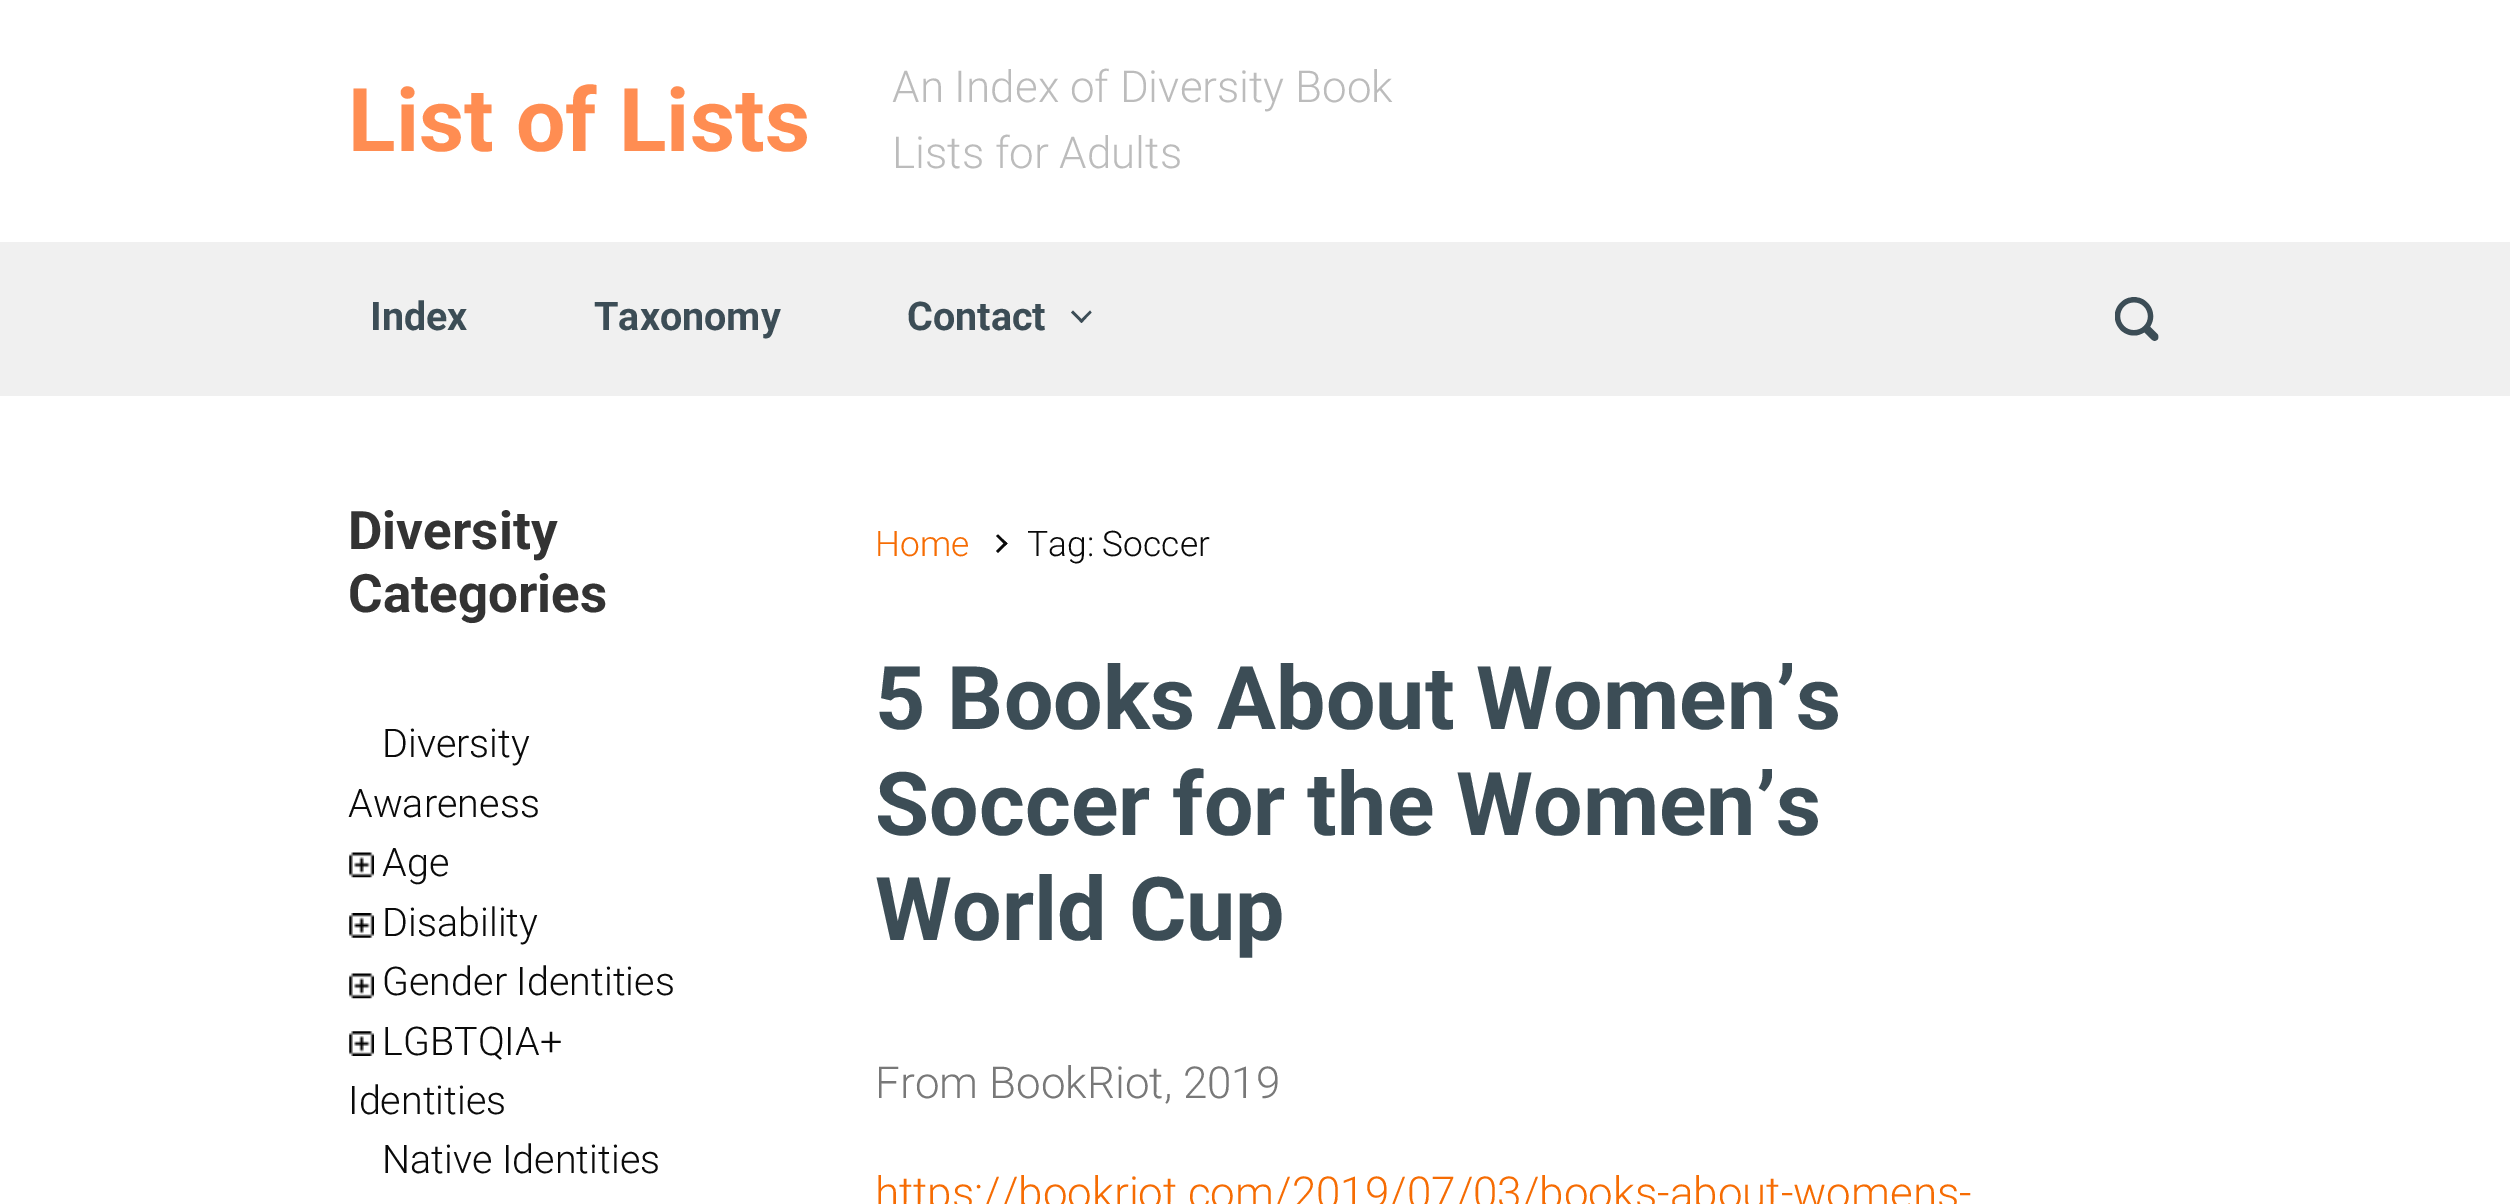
%!PS
<< /PageSize [2510 1204] >> setpagedevice
/rgb { dup -16 bitshift 255 div exch dup -8 bitshift 255 and 255 div exch 255 and 255 div setrgbcolor } def
/font { [ exch dup neg 0 0 3 -1 roll 0 0 ] selectfont } def
/text { moveto show } def
/picture { 5 dict begin { /h /w /y /x /name } { exch def } forall
  gsave x y translate w h scale
  w h 8 [w 0 0 h 0 0] name (r) file false 3 colorimage grestore end } def
0 1204 translate 1 -1 scale
4 setmiterlimit
/s1 { /Roboto-Bold 88 font 16#FF8D52 rgb } def
/s2 { /Roboto-Light 44 font 16#BCBCBC rgb } def
/s3 { /Roboto-Bold 39.5 font 16#3C4D56 rgb } def
/s4 { /Roboto-Bold 53 font 16#333333 rgb } def
/s5 { /Roboto-Light 39.5 font 16#0A0A0A rgb } def
/s6 { /Roboto-Light 35.25 font 16#F66C03 rgb } def
/s7 { /Roboto-Light 35.25 font 16#0A0A0A rgb } def
/s8 { /Roboto-Bold 88 font 16#3C4D56 rgb } def
/s9 { /Roboto-Light 44 font 16#787878 rgb } def
/s10 { /Roboto-Light 44 font 16#F66C03 rgb } def
16#FFFFFF rgb
0 0 2510 1204 rectfill
s1
(List of Lists) 348 151 text
s2
(An Index of Diversity Book) 892 102 text
(Lists for Adults) 892 168 text
16#F0F0F0 rgb
0 242 2510 154 rectfill
s3
(Index) 370 330 text
(Taxonomy) 594 330 text
(Contact) 907 330 text
1090 310.5 moveto 1091.5 312.5 lineto 1081.5 323 lineto 1079.5 321 lineto closepath fill
1073 310.5 moveto 1083.5 321 lineto 1081.5 323 lineto 1071 312.5 lineto closepath fill
(pic1.raw) 2115 297 44 44 picture
s4
(Diversity) 348 549 text
(Categories) 348 612 text
s5
(Diversity) 382 757 text
(Awareness) 348 817 text
(pic2.raw) 349 852 25 26 picture
(Age) 382 876 text
(pic3.raw) 349 913 25 25 picture
(Disability) 382 936 text
(pic2.raw) 349 973 25 26 picture
(Gender Identities) 382 995 text
(pic4.raw) 349 1031 25 25 picture
(LGBTQIA+) 382 1055 text
(Identities) 348 1114 text
(Native Identities) 382 1173 text
s6
(Home) 875 556 text
16#0A0A0A rgb
996 536 moveto 998 534.5 lineto 1007.5 543.5 lineto 1005.5 545.5 lineto closepath fill
996 551 moveto 1005.5 541.5 lineto 1007.5 543.5 lineto 998 553 lineto closepath fill
(Tag: Soccer) 1027 556 text
s8
(5 Books About Women’s) 875 729 text
(Soccer for the Women’s) 875 835 text
(World Cup) 875 940 text
s9
(From BookRiot, 2019) 875 1098 text
s10
(https://bookriot.com/2019/07/03/books-about-womens-) 875 1208 text
showpage
